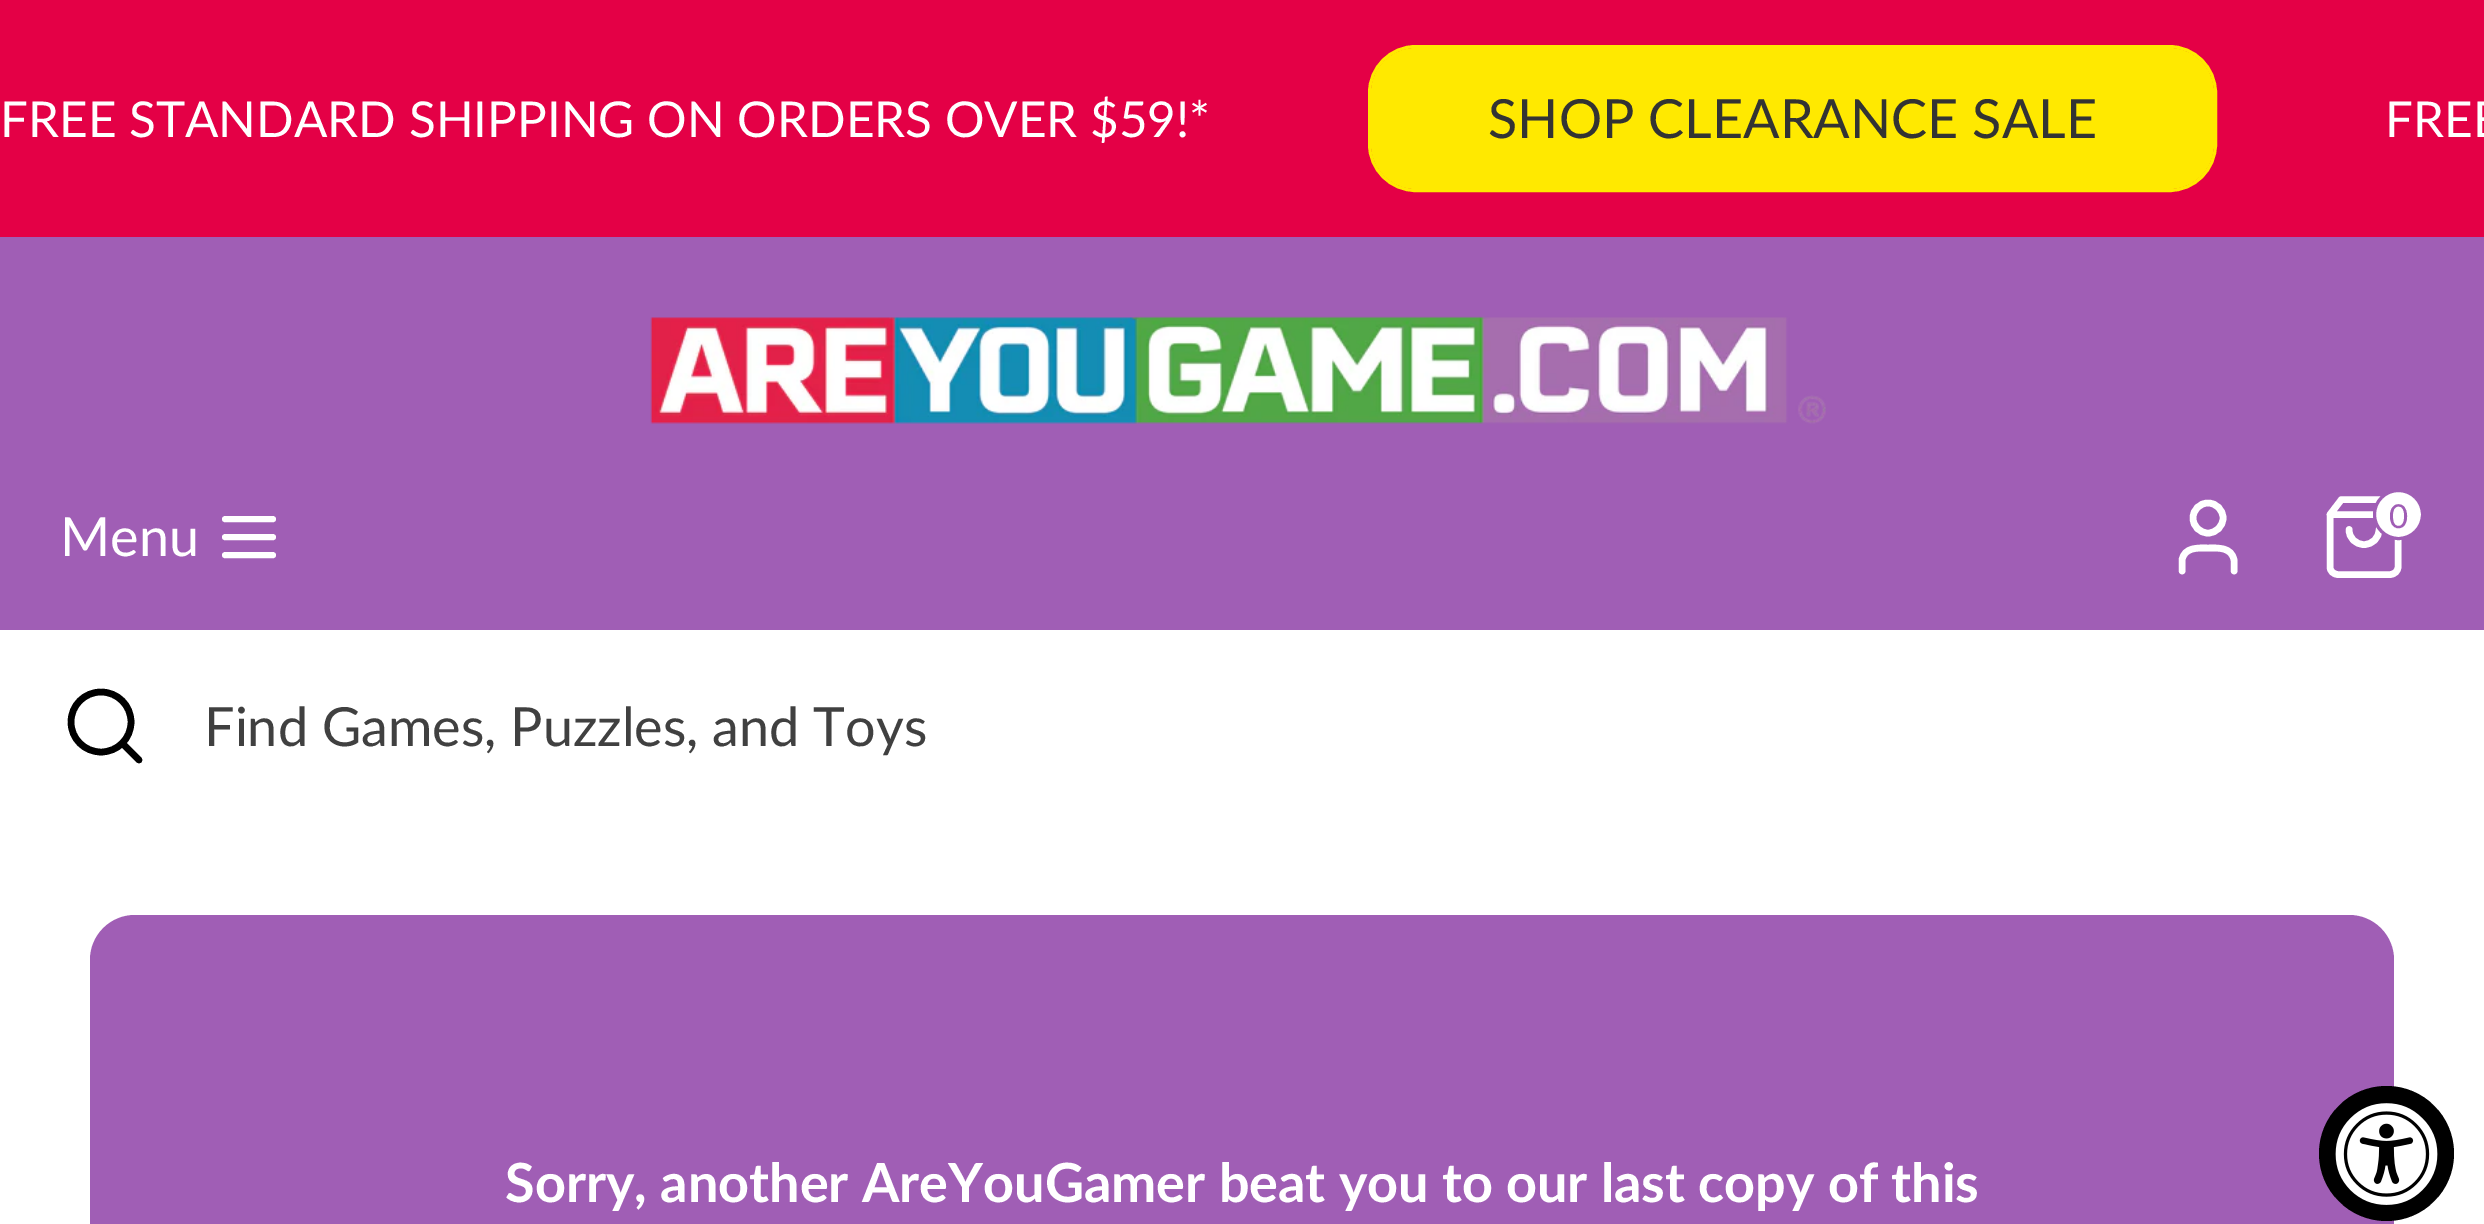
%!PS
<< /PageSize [2484 1224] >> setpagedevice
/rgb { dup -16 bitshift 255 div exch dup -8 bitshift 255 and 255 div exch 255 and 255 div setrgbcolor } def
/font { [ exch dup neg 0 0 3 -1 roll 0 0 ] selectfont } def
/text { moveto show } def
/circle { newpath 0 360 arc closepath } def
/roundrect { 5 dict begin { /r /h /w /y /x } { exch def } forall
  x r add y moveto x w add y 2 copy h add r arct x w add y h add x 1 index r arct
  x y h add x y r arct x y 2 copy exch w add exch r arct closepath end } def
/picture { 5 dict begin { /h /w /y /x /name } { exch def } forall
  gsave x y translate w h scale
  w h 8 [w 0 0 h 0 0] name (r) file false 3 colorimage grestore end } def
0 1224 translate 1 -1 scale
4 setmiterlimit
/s1 { /Lato-Regular 49.5 font 16#FFFFFF rgb } def
/s2 { /Lato-Regular 54 font 16#333333 rgb } def
/s3 { /Lato-Regular 54 font 16#FFFFFF rgb } def
/s4 { /Lato-Regular 33 font 16#A05EB5 rgb } def
/s5 { /Lato-Regular 54 font 16#404040 rgb } def
/s6 { /Lato-Bold 54 font 16#FFFFFF rgb } def
16#FFFFFF rgb
0 0 2484 1224 rectfill
16#E40046 rgb
0 0 2484 237 rectfill
s1
(FREE STANDARD SHIPPING ON ORDERS OVER $59!*) 0 137 text
16#FFE900 rgb
3 setlinewidth
1369.5 46.5 846 144 46.5 roundrect stroke
1371 48 843 141 45 roundrect fill
s2
(SHOP CLEARANCE SALE) 1488 138 text
s1
(FREE) 2385 137 text
16#A05EB5 rgb
0 237 2484 393 rectfill
(pic1.raw) 650 316 1176 108 picture
s3
(Menu) 60 556 text
6 setlinewidth
1 setlinecap
1 setlinejoin
225 537 moveto 273 537 lineto 225 519 moveto 273 519 lineto 225 555 moveto 273 555 lineto stroke
6.6 setlinewidth
2234 571 moveto 2234 560 lineto 2231.5 547 2218.5 548 2208 548 curveto 2197.5 548 2184.5 547 2182 560 curveto 2182 571 lineto stroke
0 setlinecap
0 setlinejoin
2208 518 15 circle stroke
1 setlinecap
1 setlinejoin
2341.5 499.5 moveto 2330 514.5 lineto 2330 567 lineto 2330 571 2333.5 574.5 2338 574.5 curveto 2390 574.5 lineto 2394.5 574.5 2398 571 2398 567 curveto 2398 514.5 lineto 2386.5 499.5 lineto closepath 2330 514.5 moveto 2398 514.5 lineto stroke
2379 529.5 moveto 2379 538 2372.5 544.5 2364 544.5 curveto 2355.5 544.5 2349 538 2349 529.5 curveto stroke
2398.5 514.5 24 circle gsave fill grestore
16#A05EB5 rgb
3 setlinewidth
0 setlinecap
0 setlinejoin
stroke
s4
(0) 2389 528 text
16#000000 rgb
6.6 setlinewidth
101 722 30 circle stroke
1 setlinecap
1 setlinejoin
139 760 moveto 122.5 743.5 lineto stroke
s5
(Find Games, Puzzles, and Toys) 204 746 text
16#A05EB5 rgb
90 915 2304 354 45 roundrect fill
s6
(Sorry, another AreYouGamer beat you to our last copy of this) 505 1202 text
16#000000 rgb
2386.5 1153.5 67.5 circle fill
(pic2.raw) 2335 1103 103 102 picture
showpage
